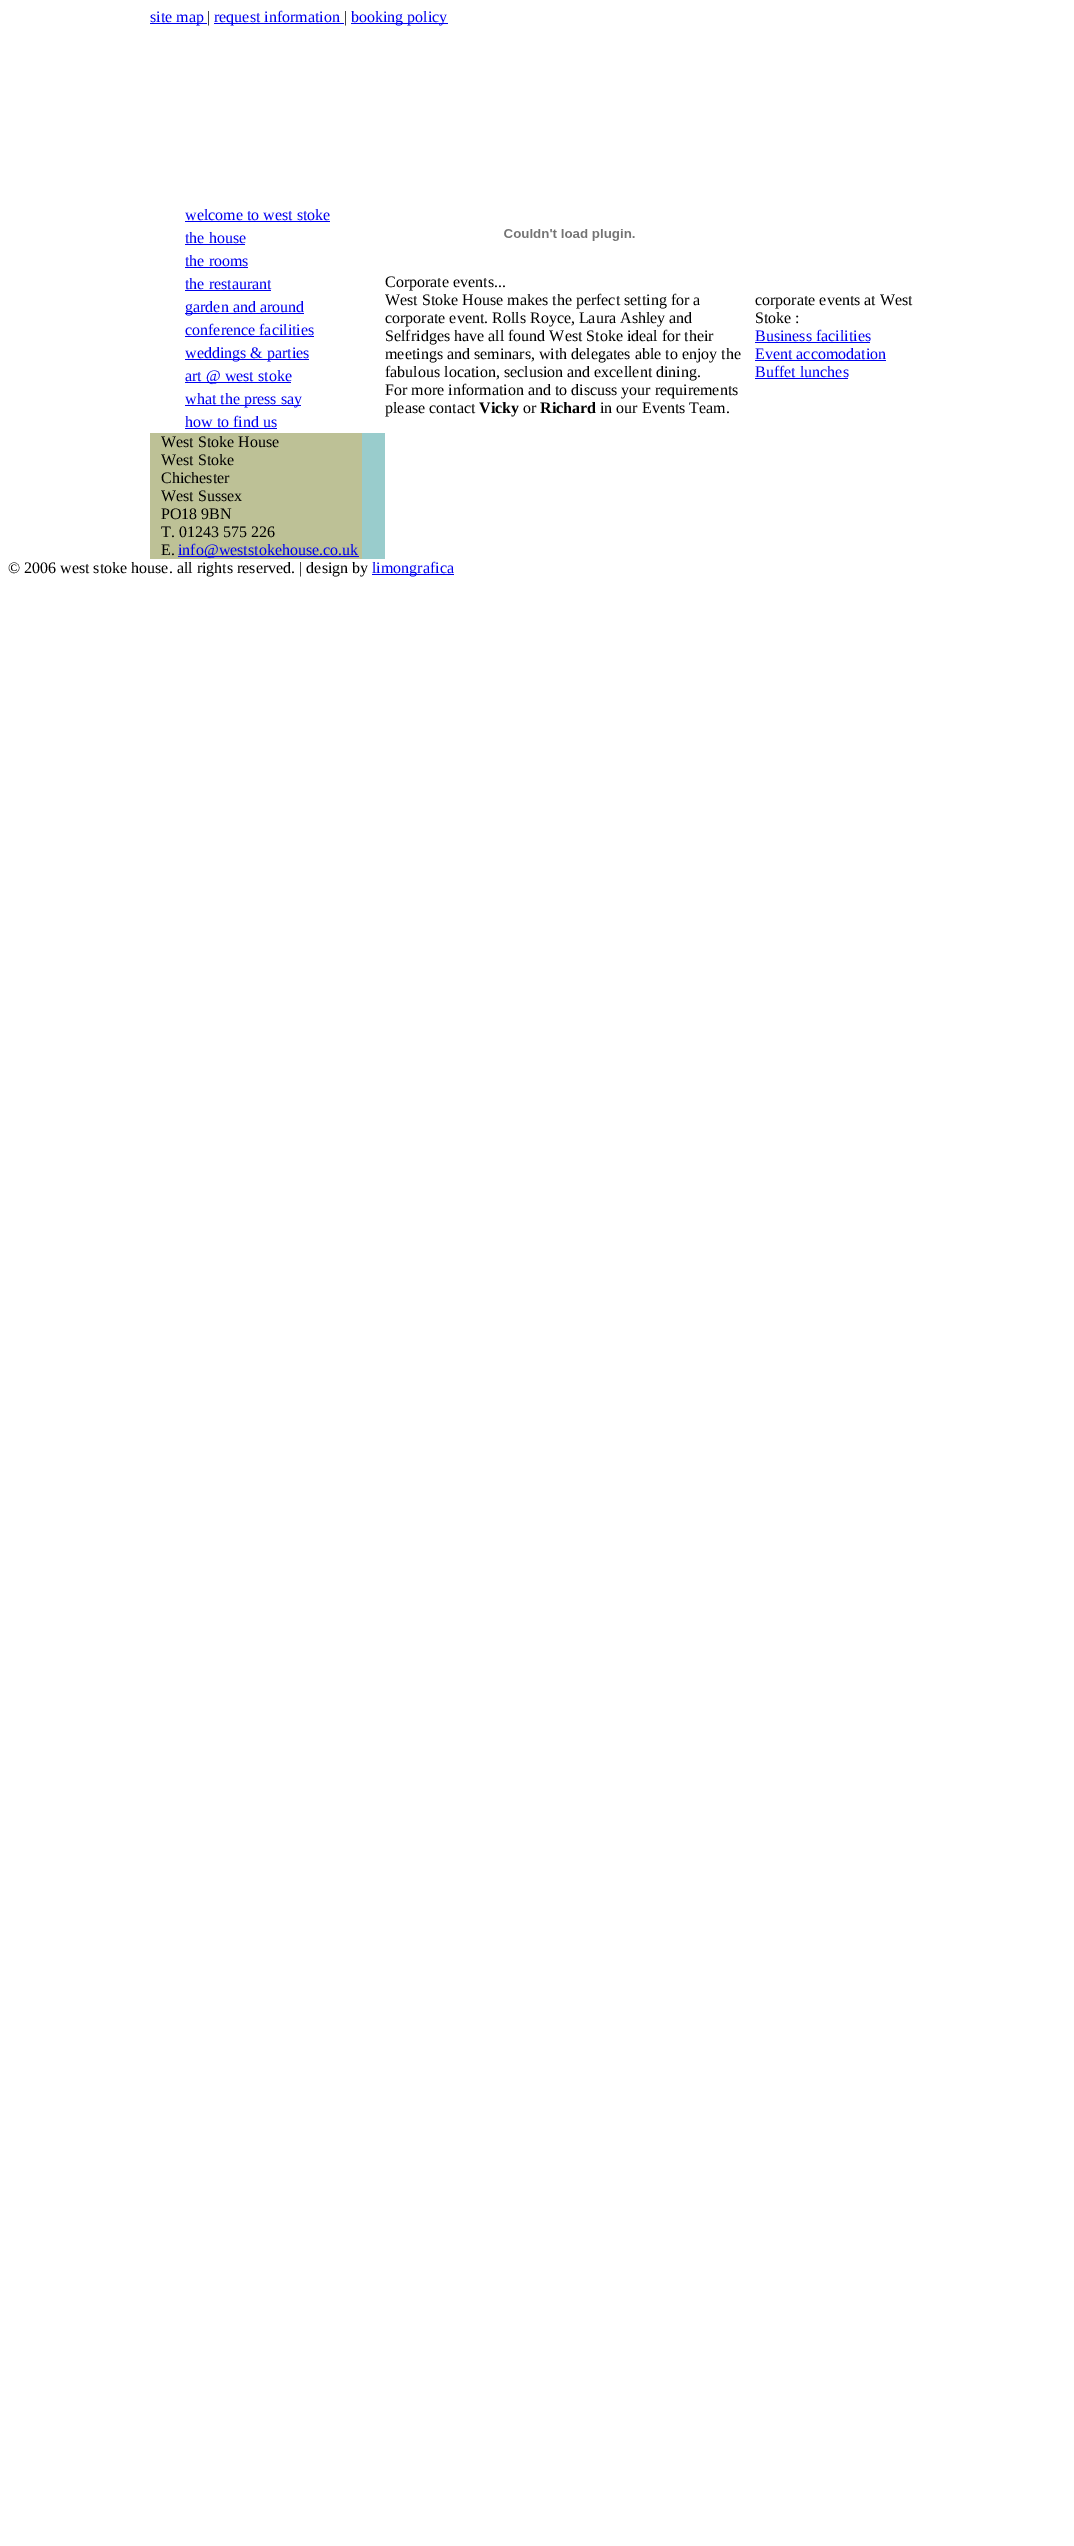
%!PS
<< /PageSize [1074 2546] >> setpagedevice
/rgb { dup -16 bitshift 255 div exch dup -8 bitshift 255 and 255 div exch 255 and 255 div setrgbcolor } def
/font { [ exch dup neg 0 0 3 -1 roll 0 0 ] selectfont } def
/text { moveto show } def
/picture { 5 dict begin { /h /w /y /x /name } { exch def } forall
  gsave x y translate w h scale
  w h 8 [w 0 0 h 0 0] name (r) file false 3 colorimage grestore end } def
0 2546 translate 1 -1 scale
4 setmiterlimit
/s1 { /LiberationSerif-Regular 16 font 16#0000EE rgb } def
/s2 { /LiberationSerif-Regular 16 font 16#000000 rgb } def
/s3 { /LiberationSerif-Bold 16 font 16#000000 rgb } def
16#FFFFFF rgb
0 0 1074 2546 rectfill
16#0000EE rgb
150 23 57 1 rectfill
s1
(site map) 150 22 text
s2
(|) 207 22 text
16#0000EE rgb
214 23 130 1 rectfill
(request information) 214 22 text
s2
(|) 344 22 text
16#0000EE rgb
351 23 97 1 rectfill
(booking policy) 351 22 text
(welcome to west stoke) 185 220 text
185 221 145 1 rectfill
(the house) 185 243 text
185 244 60 1 rectfill
(the rooms) 185 266 text
185 267 63 1 rectfill
(the restaurant) 185 289 text
185 290 86 1 rectfill
185 313 119 1 rectfill
(garden and around) 185 312 text
(conference facilities) 185 335 text
185 336 129 1 rectfill
185 359 124 1 rectfill
(weddings & parties) 185 358 text
185 382 106 1 rectfill
(art @ west stoke) 185 381 text
185 405 116 1 rectfill
(what the press say) 185 404 text
(how to find us) 185 427 text
185 428 92 1 rectfill
(pic1.raw) 504 229 131 12 picture
s2
(Corporate events...) 385 287 text
(West Stoke House makes the perfect setting for a) 385 305 text
(corporate event. Rolls Royce, Laura Ashley and) 385 323 text
(Selfridges have all found West Stoke ideal for their) 385 341 text
(meetings and seminars, with delegates able to enjoy the) 385 359 text
(fabulous location, seclusion and excellent dining.) 385 377 text
(For more information and to discuss your requirements) 385 395 text
(please contact) 385 413 text
s3
(Vicky) 479 413 text
s2
(or) 523 413 text
s3
(Richard) 540 413 text
s2
(in our Events Team.) 600 413 text
(corporate events at West) 755 305 text
(Stoke :) 755 323 text
s1
(Business facilities) 755 341 text
755 342 115 1 rectfill
(Event accomodation) 755 359 text
755 360 131 1 rectfill
(Buffet lunches) 755 377 text
755 378 93 1 rectfill
16#BDC196 rgb
150 433 212 126 rectfill
s2
(West Stoke House) 161 447 text
(West Stoke) 161 465 text
(Chichester) 161 483 text
(West Sussex) 161 501 text
(PO18 9BN) 161 519 text
(T. 01243 575 226) 161 537 text
(E.) 161 555 text
16#0000EE rgb
178 556 181 1 rectfill
(info@weststokehouse.co.uk) 178 555 text
16#99CCCC rgb
362 433 23 126 rectfill
s2
(© 2006 west stoke house. all rights reserved. | design by) 8 573 text
16#0000EE rgb
372 574 82 1 rectfill
(limongrafica) 372 573 text
showpage
